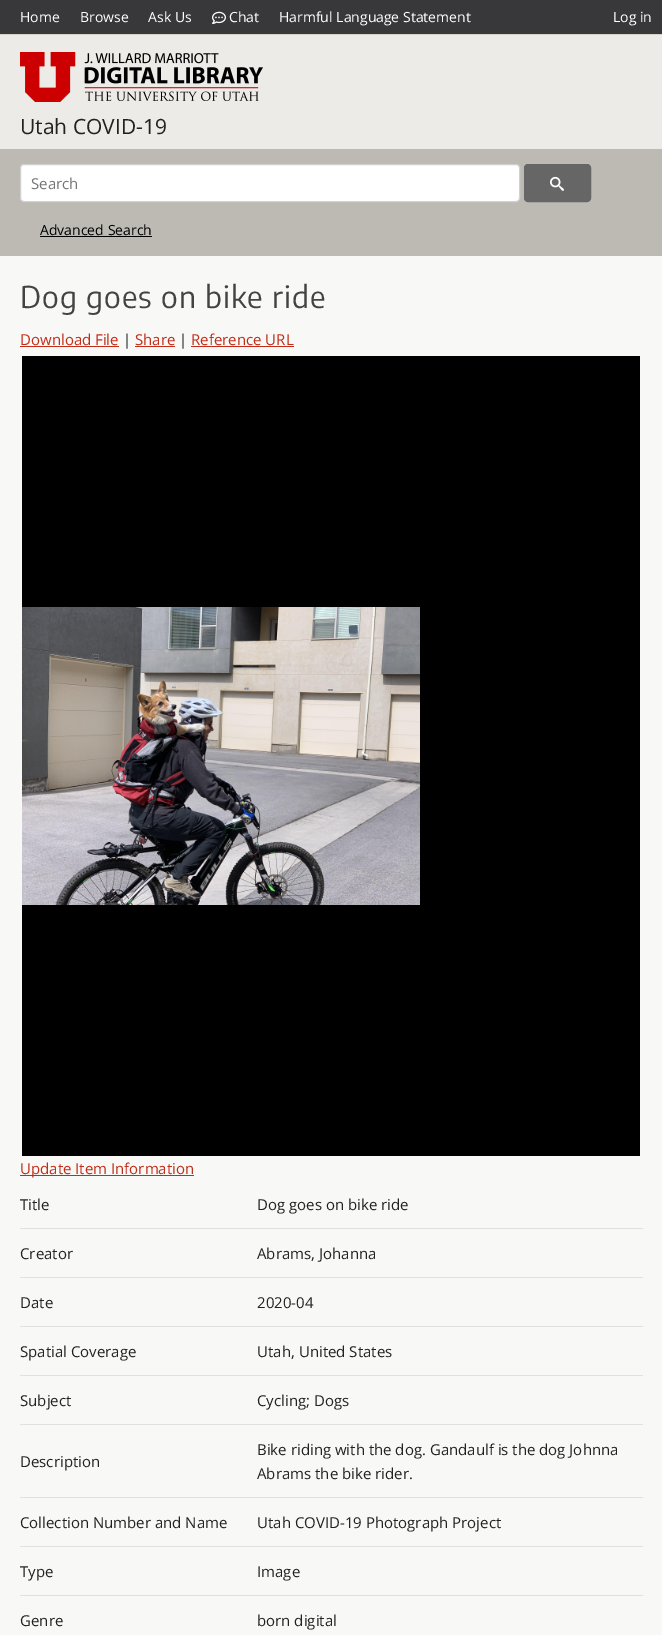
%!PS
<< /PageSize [662 1635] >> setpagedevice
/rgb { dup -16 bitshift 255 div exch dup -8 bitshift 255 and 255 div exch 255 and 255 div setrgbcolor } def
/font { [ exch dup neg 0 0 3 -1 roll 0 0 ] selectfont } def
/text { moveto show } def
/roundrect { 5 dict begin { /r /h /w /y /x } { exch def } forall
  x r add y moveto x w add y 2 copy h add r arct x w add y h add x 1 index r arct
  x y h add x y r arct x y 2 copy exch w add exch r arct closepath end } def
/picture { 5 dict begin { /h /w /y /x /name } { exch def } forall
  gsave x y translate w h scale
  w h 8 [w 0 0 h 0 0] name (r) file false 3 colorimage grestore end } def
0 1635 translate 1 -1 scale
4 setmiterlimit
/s1 { /OpenSans-Regular 14 font 16#FFFFFF rgb } def
/s2 { /OpenSans-Regular 21 font 16#222222 rgb } def
/s3 { /OpenSans-Regular 15 font 16#757575 rgb } def
/s4 { /OpenSans-Regular 14 font 16#000000 rgb } def
/s5 { /OpenSans-Regular 15 font 16#C22D19 rgb } def
/s6 { /OpenSans-Regular 15 font 16#222222 rgb } def
16#F8F8F7 rgb
0 0 662 1635 rectfill
16#383739 rgb
0 0 662 34 rectfill
s1
(Home) 20 22 text
(Browse) 80 22 text
(Ask Us) 148 22 text
(pic1.raw) 212 11 14 13 picture
(Chat) 229 22 text
(Harmful Language Statement) 279 22 text
(Log in) 613 22 text
16#EDEBE7 rgb
0 35 662 114 rectfill
16#D8D2C9 rgb
0 34 662 1 rectfill
(pic2.raw) 20 52 243 50 picture
s2
(Utah COVID-19) 20 134 text
16#BDBAB4 rgb
0 149 662 107 rectfill
16#FFFFFF rgb
20.5 164.5 499 37 3.5 roundrect gsave fill grestore
16#D1D1D1 rgb
stroke
s3
(Search) 31 189 text
16#666666 rgb
524.5 164.5 66 37 3.5 roundrect gsave fill grestore
stroke
(pic3.raw) 550 176 14 15 picture
s4
(Advanced Search) 40 235 text
40 236 112 1 rectfill
/EncodeSans-Regular 30 font
16#434343 rgb
20 308 moveto 1 0 (Dog goes on bike ride) ashow
s5
(Download File) 20 345 text
20 346 99 1 rectfill
s6
(|) 123 345 text
s5
(Share) 135 345 text
135 346 40 1 rectfill
s6
(|) 179 345 text
s5
(Reference URL) 191 345 text
191 346 103 1 rectfill
16#000000 rgb
22 356 618 800 rectfill
(pic4.raw) 22 607 398 298 picture
16#C22D19 rgb
20 1175 174 1 rectfill
(Update Item Information) 20 1174 text
s6
(Title) 20 1210 text
16#E1E1E1 rgb
20 1228 623 1 rectfill
s6
(Dog goes on bike ride) 257 1210 text
(Creator) 20 1259 text
16#E1E1E1 rgb
20 1277 623 1 rectfill
s6
(Abrams, Johanna) 257 1259 text
(Date) 20 1308 text
16#E1E1E1 rgb
20 1326 623 1 rectfill
s6
(2020-04) 257 1308 text
(Spatial Coverage) 20 1357 text
16#E1E1E1 rgb
20 1375 623 1 rectfill
s6
(Utah, United States) 257 1357 text
(Subject) 20 1406 text
16#E1E1E1 rgb
20 1424 623 1 rectfill
s6
(Cycling; Dogs) 257 1406 text
(Description) 20 1467 text
16#E1E1E1 rgb
20 1497 623 1 rectfill
s6
(Bike riding with the dog. Gandaulf is the dog Johnna) 257 1455 text
(Abrams the bike rider.) 257 1479 text
(Collection Number and Name) 20 1528 text
16#E1E1E1 rgb
20 1546 623 1 rectfill
s6
(Utah COVID-19 Photograph Project) 257 1528 text
(Type) 20 1577 text
16#E1E1E1 rgb
20 1595 623 1 rectfill
s6
(Image) 257 1577 text
(Genre) 20 1626 text
(born digital) 257 1626 text
showpage
